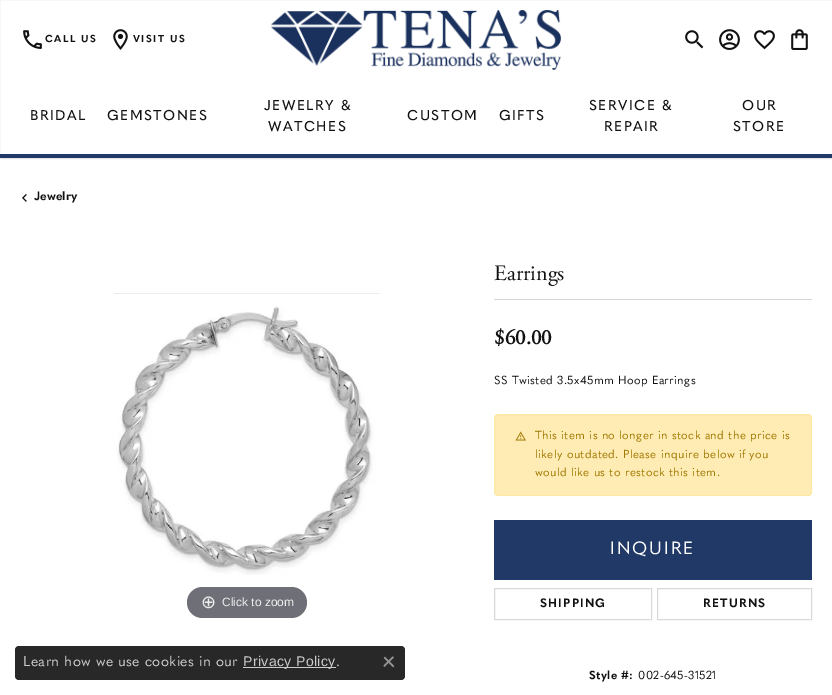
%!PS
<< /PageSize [832 695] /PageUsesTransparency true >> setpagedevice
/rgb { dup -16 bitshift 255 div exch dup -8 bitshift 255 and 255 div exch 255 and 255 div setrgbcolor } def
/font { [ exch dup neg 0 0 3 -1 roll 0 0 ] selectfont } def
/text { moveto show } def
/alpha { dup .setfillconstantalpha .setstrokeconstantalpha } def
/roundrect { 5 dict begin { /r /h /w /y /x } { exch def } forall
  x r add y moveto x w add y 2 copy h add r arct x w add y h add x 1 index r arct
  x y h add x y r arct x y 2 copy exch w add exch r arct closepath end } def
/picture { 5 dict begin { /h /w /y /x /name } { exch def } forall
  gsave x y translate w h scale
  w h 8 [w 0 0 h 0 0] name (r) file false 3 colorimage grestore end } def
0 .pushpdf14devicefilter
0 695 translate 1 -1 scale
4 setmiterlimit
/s1 { /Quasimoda-Bold 12 font 16#111111 rgb } def
/s2 { /DejaVuSans-Regular 18 font 16#EEEEEE rgb } def
/s3 { /LiberationSans-Regular 12 font 16#EEEEEE rgb } def
/s4 { /AdobeGaramond-Regular 22 font 16#111111 rgb } def
/s5 { /AdobeGaramond-Bold 21 font 16#111111 rgb } def
16#FFFFFF rgb
0 0 832 695 rectfill
16#E6E6E6 rgb
-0.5 -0.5 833 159 rectstroke
16#203967 rgb
0 154 832 4 rectfill
(pic1.raw) 23 30 19 19 picture
/Quasimoda-Bold 10 font
16#111111 rgb
45 42 moveto 1.5 0 (CALL US) ashow
(pic2.raw) 113 29 15 21 picture
133 42 moveto 1.5 0 (VISIT US) ashow
(pic3.raw) 685 30 19 19 picture
(pic4.raw) 719 29 21 21 picture
(pic5.raw) 754 30 21 20 picture
(pic6.raw) 791 29 17 21 picture
(pic7.raw) 271 10 290 60 picture
/Quasimoda-Medium 14 font
30 120 moveto 1.5 0 (BRIDAL) ashow
107 120 moveto 1.5 0 (GEMSTONES) ashow
264 110 moveto 1.5 0 (JEWELRY &) ashow
268 131 moveto 1.5 0 (WATCHES) ashow
407 120 moveto 1.5 0 (CUSTOM) ashow
499 120 moveto 1.5 0 (GIFTS) ashow
589 110 moveto 1.5 0 (SERVICE &) ashow
604 131 moveto 1.5 0 (REPAIR) ashow
742 110 moveto 1.5 0 (OUR) ashow
733 131 moveto 1.5 0 (STORE) ashow
(pic8.raw) 22 194 5 8 picture
s1
(Jewelry) 34 200 text
(pic9.raw) 113 293 268 282 picture
16#6F7077 rgb
187 587 120 31 15.5 roundrect fill
s2
(⊕) 201 608 text
s3
(Click to zoom) 222 606 text
s4
(Earrings) 494 280 text
16#D5D5D5 rgb
494 299 318 1 rectfill
s5
($60.00) 494 344 text
/Quasimoda-Regular 11.5 font
494 384 moveto 0.4 0 (SS Twisted 3.5x45mm Hoop Earrings) ashow
16#FFECB5 rgb
494 414 318 82 4 roundrect fill
0.1 alpha
16#FFC107 rgb
494.5 414.5 317 81 3.5 roundrect stroke
1 alpha
(pic10.raw) 515 431 11 10 picture
16#A07800 rgb
535 439 moveto 0.4 0 (This item is no longer in stock and the price is) ashow
535 458 moveto 0.4 0 (likely outdated. Please inquire below if you) ashow
535 476 moveto 0.4 0 (would like us to restock this item.) ashow
16#203967 rgb
494 520 318 60 rectfill
/Quasimoda-Regular 17.5 font
16#FFFFFF rgb
610 554 moveto 2 0 (INQUIRE) ashow
16#D9D9D9 rgb
494.5 588.5 157 31 rectstroke
/Quasimoda-Bold 12 font
16#111111 rgb
540 607 moveto 1.25 0 (SHIPPING) ashow
16#D9D9D9 rgb
657.5 588.5 154 31 rectstroke
16#111111 rgb
703 607 moveto 1.25 0 (RETURNS) ashow
/Quasimoda-Bold 11.5 font
589 679 moveto 0.4 0 (Style #:) ashow
/Quasimoda-Regular 11.5 font
638 679 moveto 0.4 0 (002-645-31521) ashow
0.9 alpha
15 646 390 34 4 roundrect fill
/Quasimoda-Regular 14 font
1 alpha
16#CCCCCC rgb
23 666 moveto 0.4 0 (Learn how we use cookies in our) ashow
243 667 93 1 rectfill
/LiberationSans-Regular 14 font
243 666 moveto 0.4 0 (Privacy Policy) ashow
/Quasimoda-Regular 14 font
336 666 moveto 0.4 0 (.) ashow
(pic11.raw) 383 656 12 12 picture
.poppdf14devicefilter showpage
